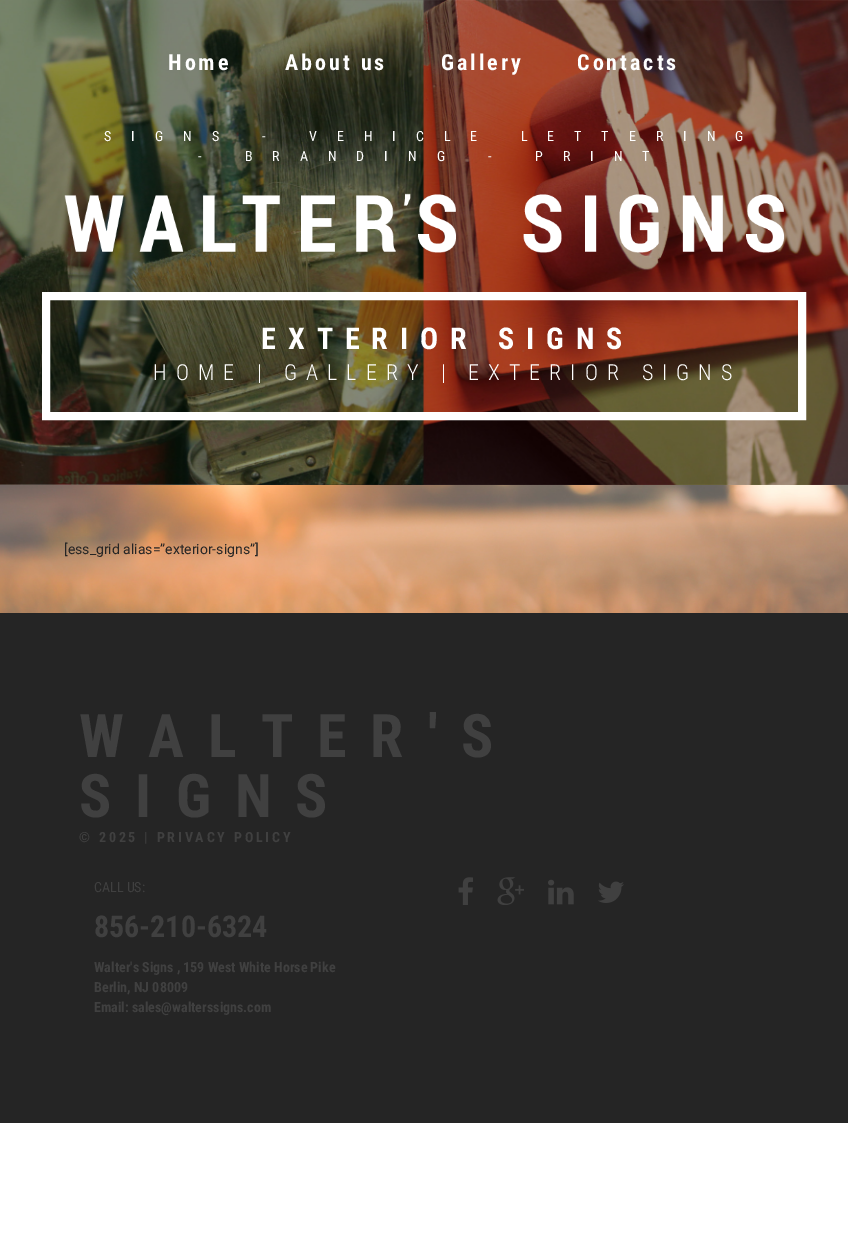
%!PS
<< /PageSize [848 1259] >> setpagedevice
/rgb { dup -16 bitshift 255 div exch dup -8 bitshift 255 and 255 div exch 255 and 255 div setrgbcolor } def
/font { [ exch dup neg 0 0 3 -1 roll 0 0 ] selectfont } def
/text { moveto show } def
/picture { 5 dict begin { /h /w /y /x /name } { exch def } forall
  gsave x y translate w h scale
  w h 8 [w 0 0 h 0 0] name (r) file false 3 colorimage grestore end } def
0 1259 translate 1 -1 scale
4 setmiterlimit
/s1 { /Roboto-Regular 14 font 16#252525 rgb } def
/s2 { /RobotoCondensed-Regular 14 font 16#404040 rgb } def
/s3 { /RobotoCondensed-Bold 30 font 16#404040 rgb } def
/s4 { /RobotoCondensed-Bold 14 font 16#404040 rgb } def
16#FFFFFF rgb
0 0 848 1259 rectfill
(pic1.raw) 0 0 848 485 picture
/RobotoCondensed-Bold 22 font
168 70 moveto 3 0 (Home) ashow
285 70 moveto 3 0 (About us) ashow
441 70 moveto 3 0 (Gallery) ashow
577 70 moveto 3 0 (Contacts) ashow
/RobotoCondensed-Regular 14 font
104 141 moveto 20 0 (SIGNS - VEHICLE LETTERING) ashow
198 161 moveto 20 0 (- BRANDING - PRINT) ashow
(pic2.raw) 64 193 720 60 picture
8 setlinewidth
46 296 756 120 rectstroke
/RobotoCondensed-Bold 30 font
261 349 moveto 12 0 (EXTERIOR SIGNS) ashow
/RobotoCondensed-Light 22 font
153 380 moveto 9 0 (HOME) ashow
257 380 moveto 9 0 (|) ashow
284 380 moveto 9 0 (GALLERY) ashow
441 380 moveto 9 0 (|) ashow
468 380 moveto 9 0 (EXTERIOR SIGNS) ashow
(pic3.raw) 0 485 848 128 picture
s1
([ess_grid alias=”exterior-signs”]) 64 554 text
0 613 848 510 rectfill
/RobotoCondensed-Bold 60 font
16#404040 rgb
79 757 moveto 24 0 (WALTER'S) ashow
79 817 moveto 24 0 (SIGNS) ashow
/RobotoCondensed-Bold 14 font
79 842 moveto 2.8 0 (© 2025 | PRIVACY POLICY) ashow
s2
(CALL US:) 94 892 text
s3
(856-210-6324) 94 937 text
s4
(Walter's Signs , 159 West White Horse Pike) 94 972 text
(Berlin, NJ 08009) 94 992 text
(Email: sales@walterssigns.com) 94 1012 text
(pic4.raw) 458 877 15 28 picture
(pic5.raw) 497 877 27 28 picture
(pic6.raw) 548 879 26 26 picture
(pic7.raw) 598 881 26 22 picture
showpage
